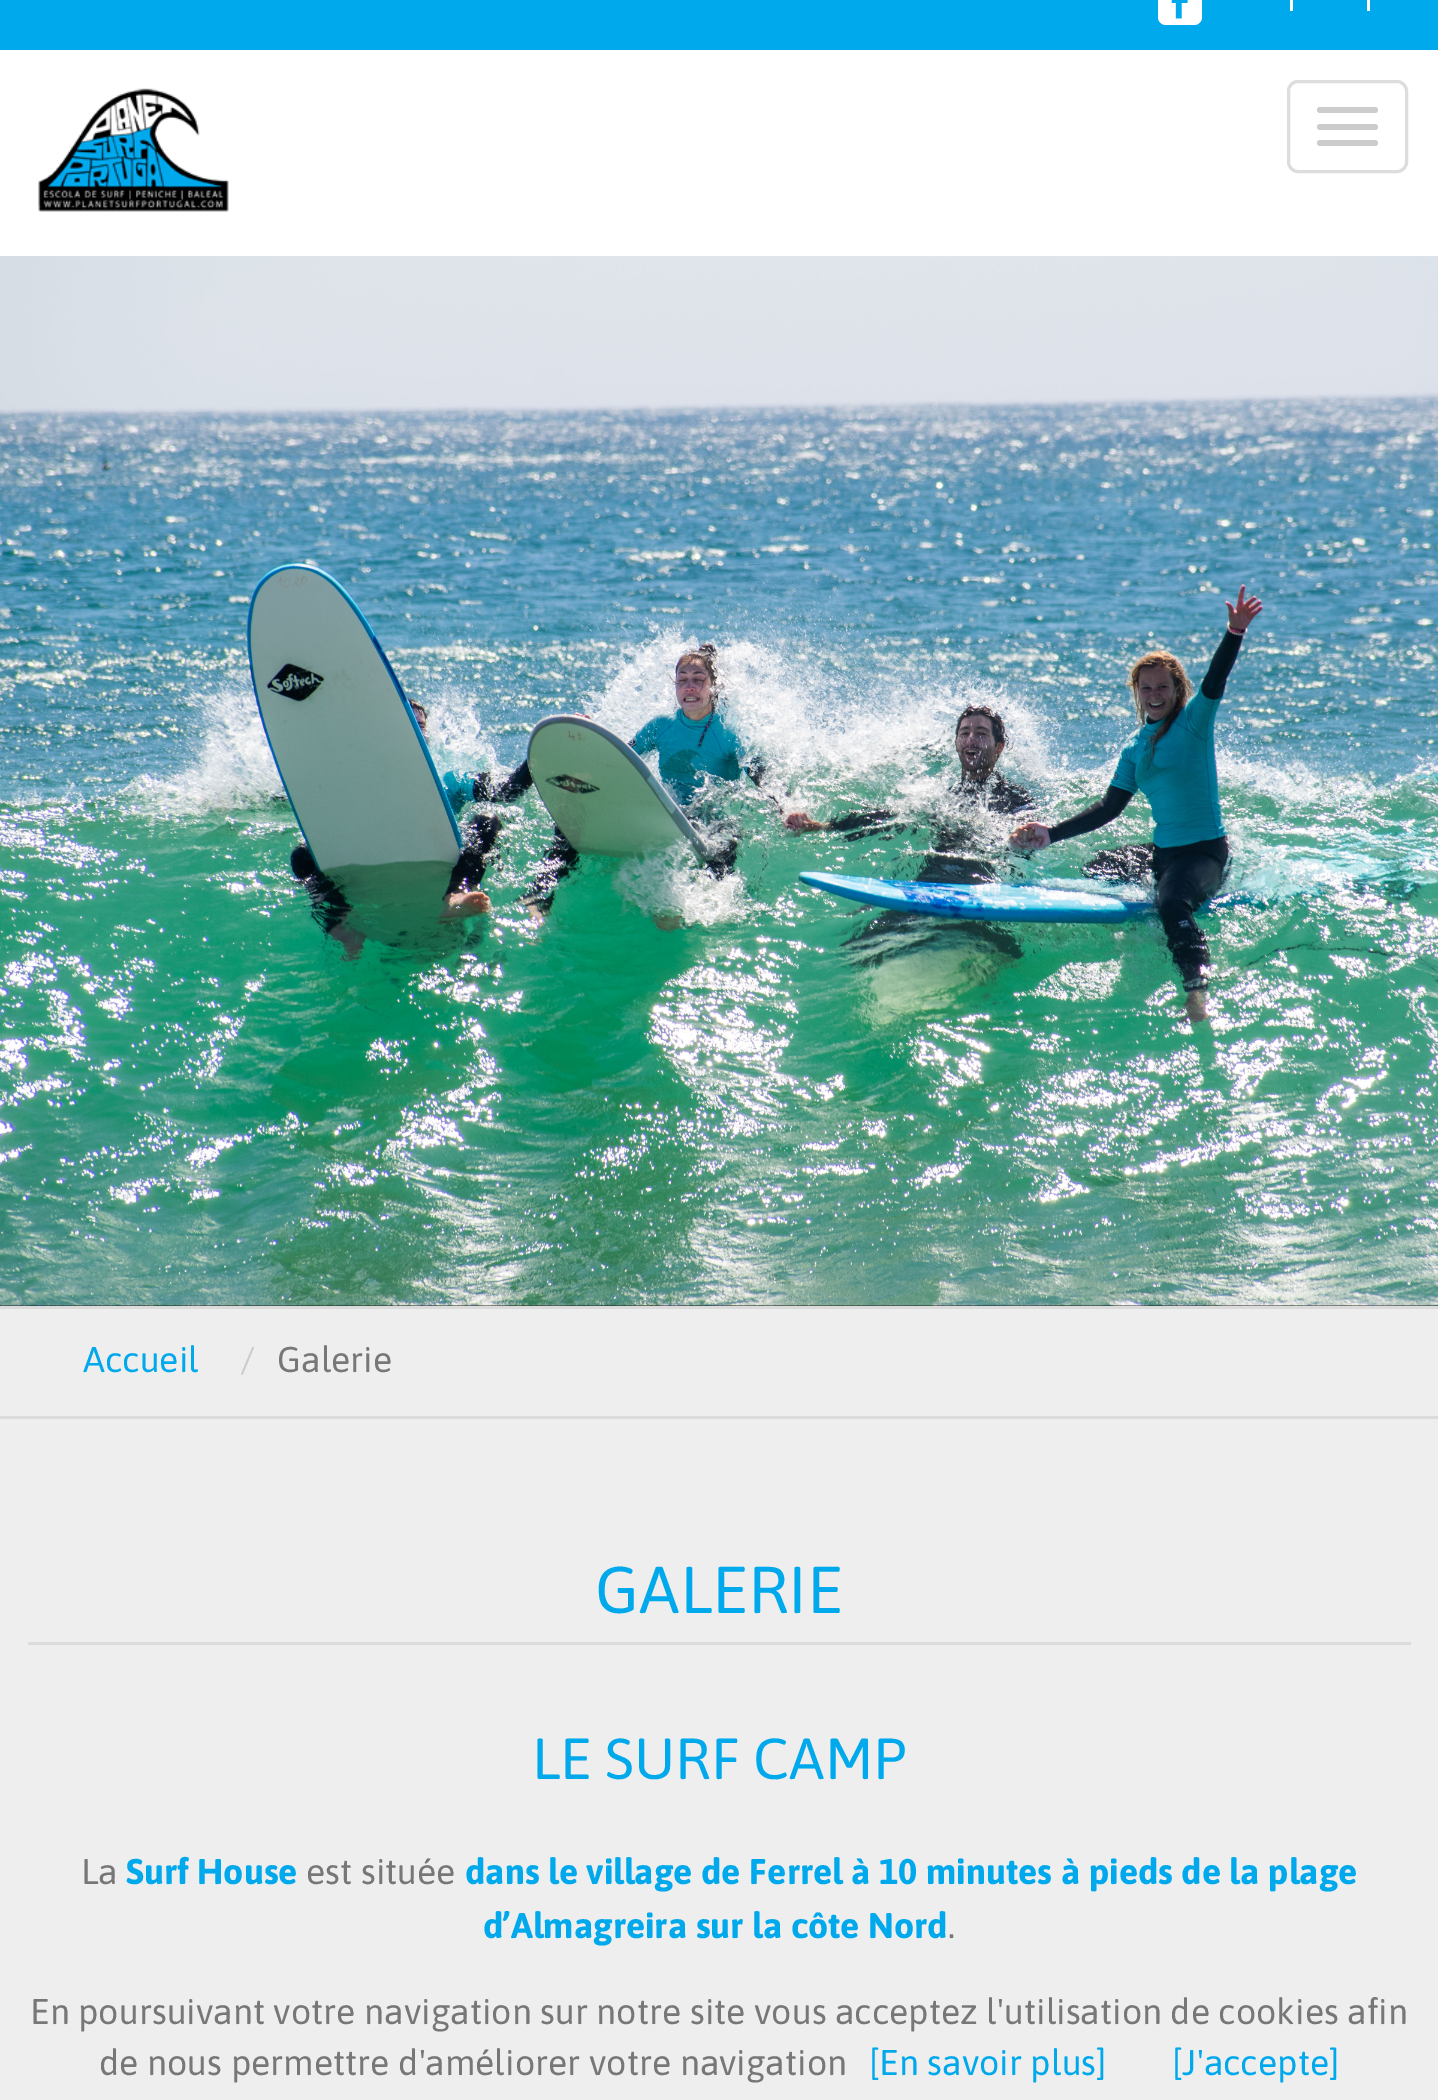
%!PS
<< /PageSize [1438 2100] >> setpagedevice
/rgb { dup -16 bitshift 255 div exch dup -8 bitshift 255 and 255 div exch 255 and 255 div setrgbcolor } def
/font { [ exch dup neg 0 0 3 -1 roll 0 0 ] selectfont } def
/text { moveto show } def
/roundrect { 5 dict begin { /r /h /w /y /x } { exch def } forall
  x r add y moveto x w add y 2 copy h add r arct x w add y h add x 1 index r arct
  x y h add x y r arct x y 2 copy exch w add exch r arct closepath end } def
/picture { 5 dict begin { /h /w /y /x /name } { exch def } forall
  gsave x y translate w h scale
  w h 8 [w 0 0 h 0 0] name (r) file false 3 colorimage grestore end } def
0 2100 translate 1 -1 scale
4 setmiterlimit
/s1 { /Asap-Regular 35.75 font 16#00A8EC rgb } def
/s2 { /Asap-Regular 35.75 font 16#CCCCCC rgb } def
/s3 { /Asap-Regular 35.75 font 16#777777 rgb } def
/s4 { /Asap-Regular 66 font 16#00A8EC rgb } def
/s5 { /Asap-Regular 57.75 font 16#00A8EC rgb } def
/s6 { /Asap-Bold 35.75 font 16#00A8EC rgb } def
16#111111 rgb
0 0 1438 2100 rectfill
16#00A8EC rgb
0 0 1438 50 rectfill
16#FFFFFF rgb
1158 -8 44 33 8 roundrect fill
(pic1.raw) 1171 0 17 19 picture
1290 0 3 11 rectfill
1367 0 3 11 rectfill
0 50 1438 206 rectfill
(pic2.raw) 38 88 191 124 picture
16#DDDDDD rgb
3 setlinewidth
1288.5 81.5 118 90 9.5 roundrect stroke
16#CCCCCC rgb
1317 107 61 6 3 roundrect fill
1317 124 61 6 3 roundrect fill
1317 140 61 6 3 roundrect fill
(pic3.raw) 0 256 1438 1050 picture
16#EEEEEE rgb
0 1309 1438 791 rectfill
16#DBDBDB rgb
0 1306 1438 3 rectfill
0 1416 1438 3 rectfill
s1
(Accueil) 83 1372 text
s2
(/) 240 1372 text
s3
(Galerie) 277 1372 text
16#DBDBDB rgb
28 1642 1383 3 rectfill
s4
(GALERIE) 595 1613 text
s5
(LE SURF CAMP) 532 1779 text
s3
(La) 81 1884 text
s6
(Surf House) 126 1884 text
s3
(est située) 306 1884 text
s6
(dans le village de Ferrel à 10 minutes à pieds de la plage) 465 1884 text
(d’Almagreira sur la côte Nord) 483 1938 text
s3
(.) 948 1938 text
(En poursuivant votre navigation sur notre site vous acceptez l'utilisation de cookies afin) 30 2024 text
(de nous permettre d'améliorer votre navigation) 99 2075 text
s1
([En savoir plus]) 869 2075 text
([J'accepte]) 1172 2075 text
showpage
